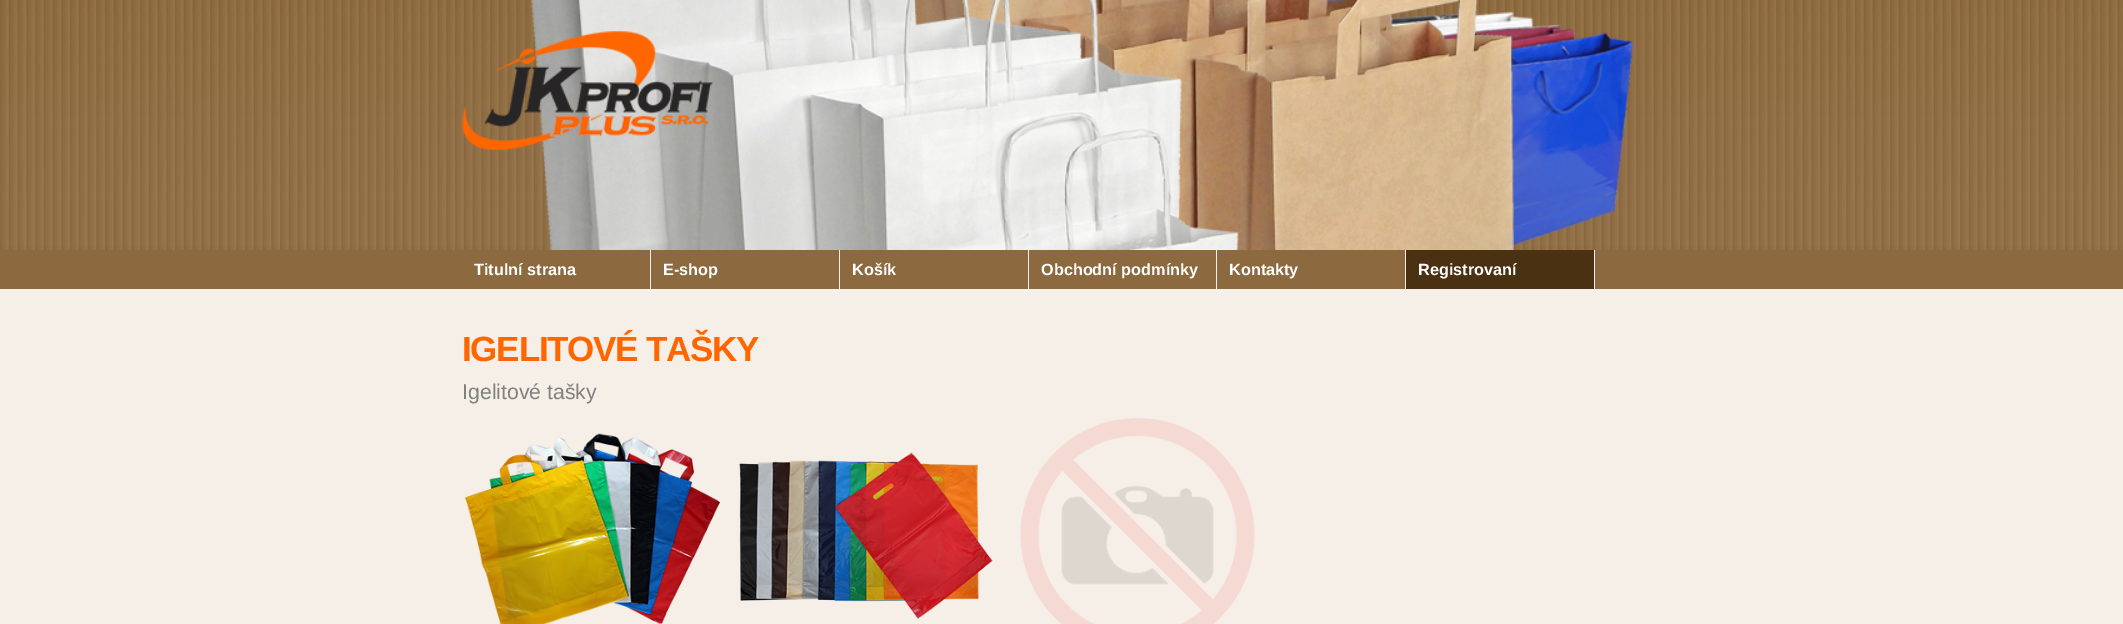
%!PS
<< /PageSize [2123 624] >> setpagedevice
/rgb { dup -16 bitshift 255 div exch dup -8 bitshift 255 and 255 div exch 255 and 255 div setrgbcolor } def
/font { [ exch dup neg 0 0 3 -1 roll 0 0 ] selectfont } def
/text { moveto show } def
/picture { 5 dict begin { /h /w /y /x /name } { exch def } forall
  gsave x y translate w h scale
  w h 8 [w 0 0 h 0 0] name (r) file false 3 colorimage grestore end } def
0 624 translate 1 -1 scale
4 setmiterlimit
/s1 { /LiberationSans-Bold 16.25 font 16#FFFFFF rgb } def
/s2 { /LiberationSans-Regular 21.25 font 16#808080 rgb } def
16#F6EFE8 rgb
0 0 2123 624 rectfill
(pic1.raw) 0 0 2123 250 picture
(pic2.raw) 531 0 1103 250 picture
(pic3.raw) 462 31 251 119 picture
16#8C693E rgb
0 250 2123 39 rectfill
16#F6EFE8 rgb
650 250 1 39 rectfill
s1
(Titulní strana) 474 275 text
16#F6EFE8 rgb
839 250 1 39 rectfill
s1
(E-shop) 663 275 text
16#F6EFE8 rgb
1028 250 1 39 rectfill
s1
(Košík) 852 275 text
16#F6EFE8 rgb
1216 250 1 39 rectfill
s1
(Obchodní podmínky) 1041 275 text
16#F6EFE8 rgb
1405 250 1 39 rectfill
s1
(Kontakty) 1229 275 text
16#4A3112 rgb
1406 250 188 39 rectfill
16#F6EFE8 rgb
1594 250 1 39 rectfill
s1
(Registrovaní) 1418 275 text
/LiberationSans-Bold 35 font
16#FF6600 rgb
462 361 moveto -1.25 0 (IGELITOVÉ TAŠKY) ashow
s2
(Igelitové tašky) 462 399 text
(pic4.raw) 465 433 255 191 picture
(pic5.raw) 739 452 254 167 picture
(pic6.raw) 1020 417 235 207 picture
showpage
